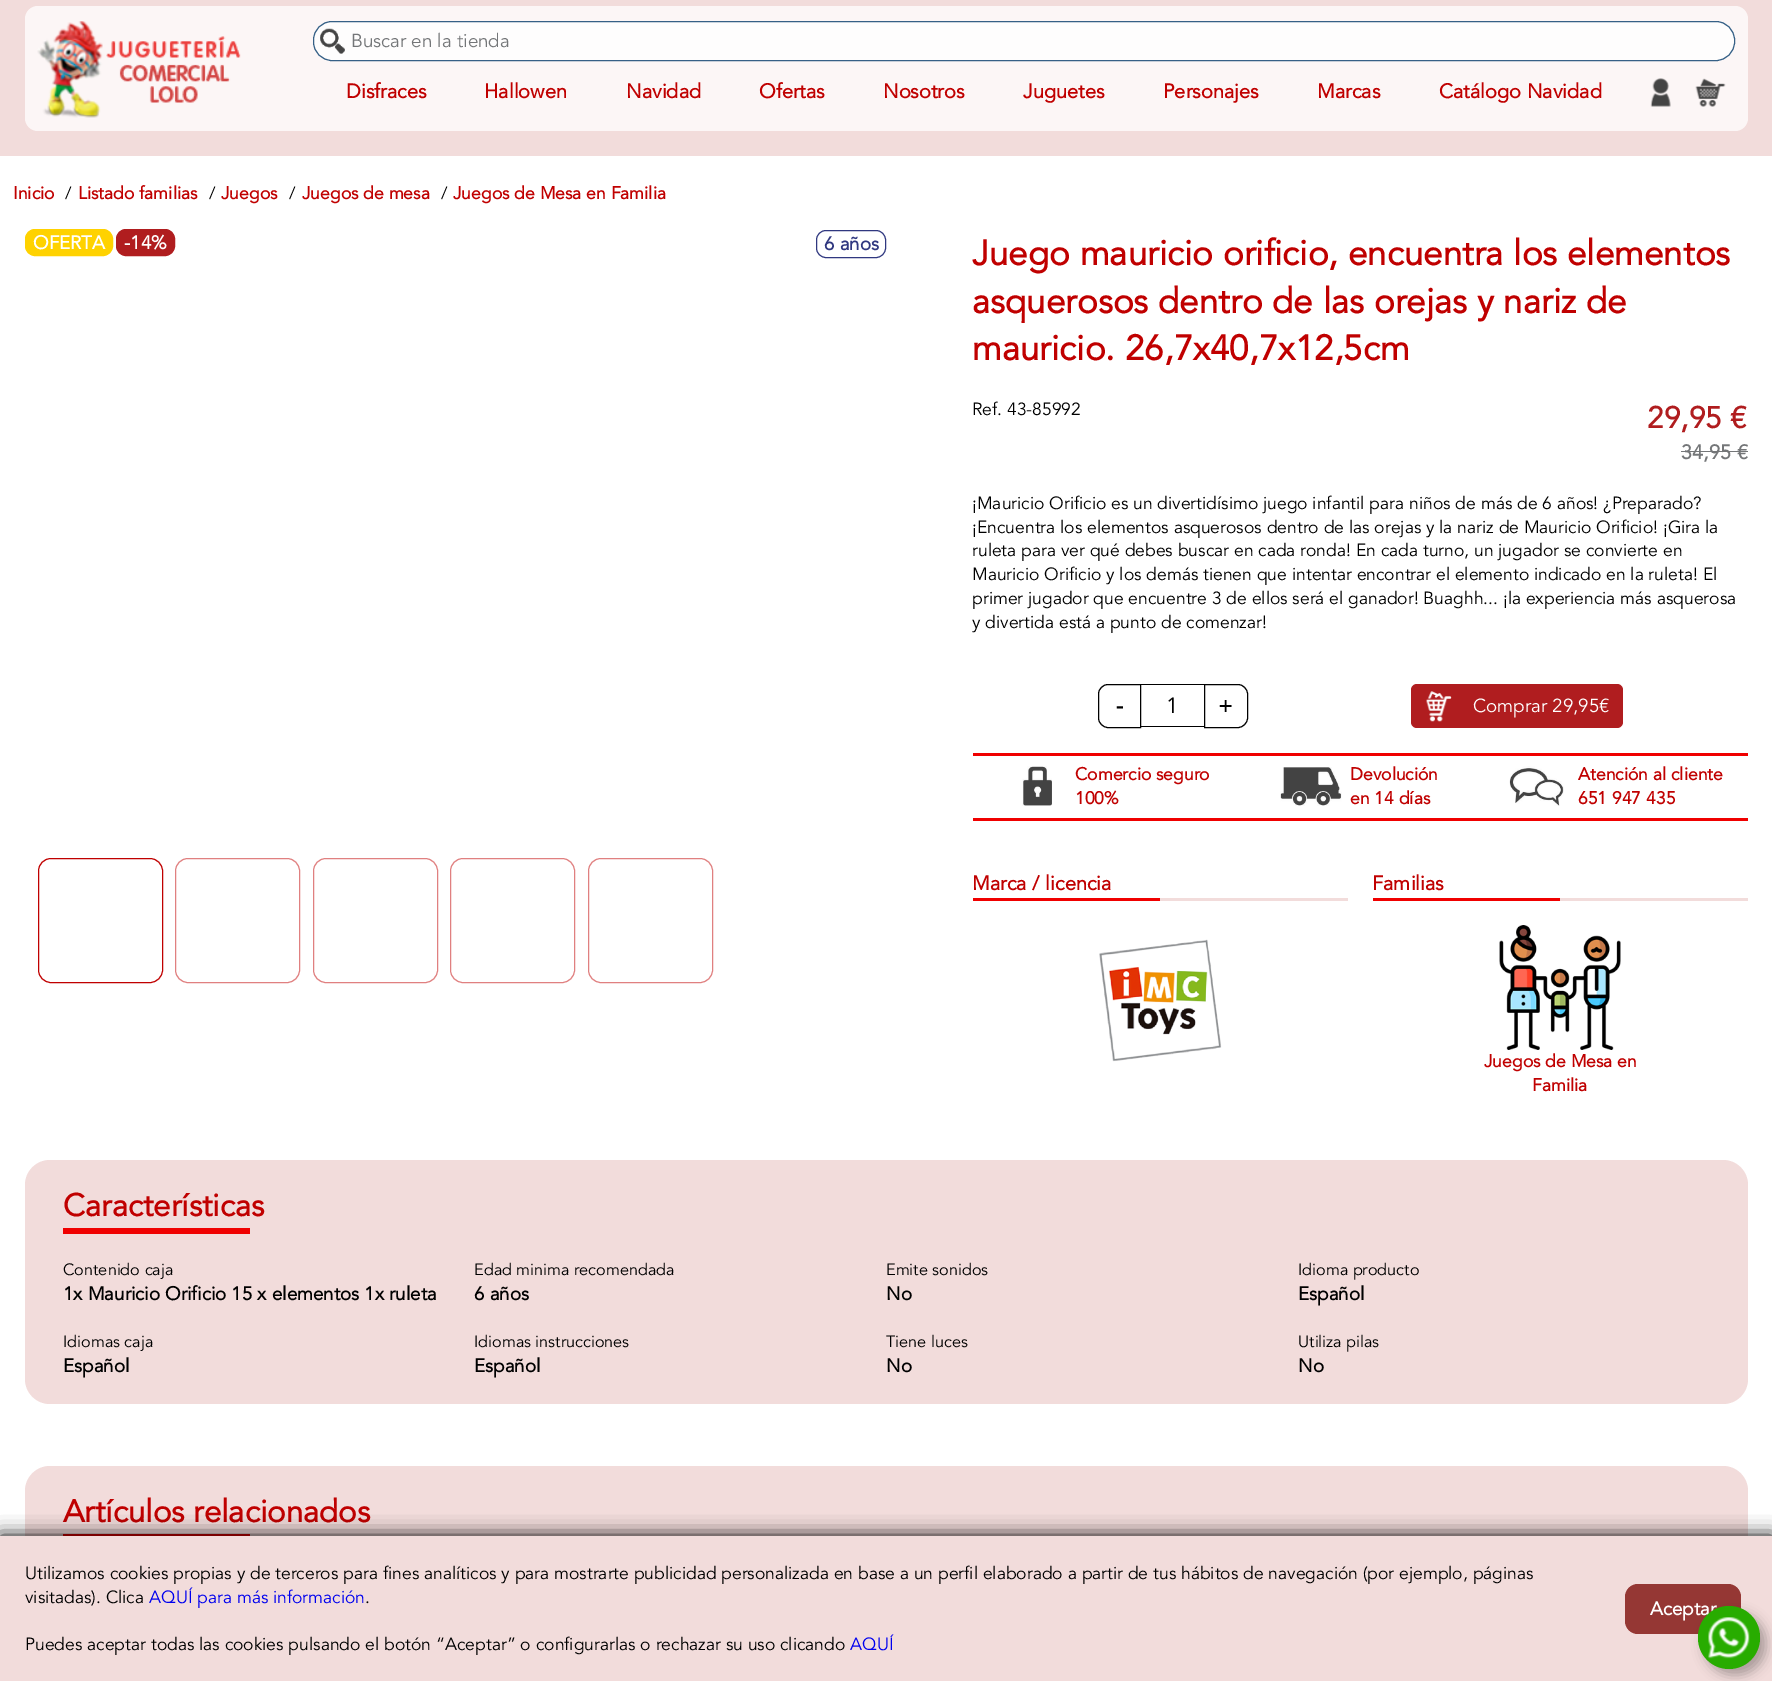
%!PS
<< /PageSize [1772 1681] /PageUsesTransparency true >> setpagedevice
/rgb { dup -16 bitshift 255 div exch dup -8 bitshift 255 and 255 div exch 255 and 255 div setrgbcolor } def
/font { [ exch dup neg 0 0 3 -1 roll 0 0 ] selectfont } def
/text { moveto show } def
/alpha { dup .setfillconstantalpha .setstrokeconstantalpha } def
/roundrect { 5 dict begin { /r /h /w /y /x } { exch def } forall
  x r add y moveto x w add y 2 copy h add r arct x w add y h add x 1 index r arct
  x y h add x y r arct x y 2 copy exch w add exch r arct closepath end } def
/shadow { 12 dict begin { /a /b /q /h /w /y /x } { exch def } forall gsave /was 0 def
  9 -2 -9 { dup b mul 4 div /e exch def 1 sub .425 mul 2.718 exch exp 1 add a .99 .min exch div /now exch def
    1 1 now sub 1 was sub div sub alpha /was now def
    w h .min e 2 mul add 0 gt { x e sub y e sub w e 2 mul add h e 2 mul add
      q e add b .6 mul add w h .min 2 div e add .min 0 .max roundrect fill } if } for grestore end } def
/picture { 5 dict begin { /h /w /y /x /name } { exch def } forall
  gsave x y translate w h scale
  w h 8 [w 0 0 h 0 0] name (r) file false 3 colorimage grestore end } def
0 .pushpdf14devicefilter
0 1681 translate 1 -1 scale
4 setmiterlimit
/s1 { /Avenir-Regular 18.75 font 16#747678 rgb } def
/s2 { /Avenir-Bold 20 font 16#C00000 rgb } def
/s3 { /Avenir-Bold 17.5 font 16#C00000 rgb } def
/s4 { /Avenir-Regular 17.5 font 16#000000 rgb } def
/s5 { /Avenir-Bold 18.75 font 16#FFFFFF rgb } def
/s6 { /Avenir-Bold 18.75 font 16#303880 rgb } def
/s7 { /Avenir-Bold 35 font 16#C00000 rgb } def
/s8 { /Avenir-Bold 30 font 16#B01D1F rgb } def
/s9 { /Avenir-Bold 20 font 16#747678 rgb } def
/s10 { /Avenir-Bold 22 font 16#000000 rgb } def
/s11 { /Avenir-Regular 22 font 16#000000 rgb } def
/s12 { /Avenir-Regular 18.75 font 16#FFFFFF rgb } def
/s13 { /Avenir-Bold 31.25 font 16#C00000 rgb } def
/s14 { /Avenir-Regular 16.25 font 16#000000 rgb } def
/s15 { /Avenir-Bold 18.75 font 16#000000 rgb } def
/s16 { /Avenir-Regular 17.5 font 16#0000EE rgb } def
16#FFFFFF rgb
0 0 1772 1681 rectfill
16#F2DCDB rgb
0 0 1772 156 rectfill
16#FCF6F6 rgb
25 6 1723 125 13 roundrect fill
(pic1.raw) 37 21 204 97 picture
16#FEFDFD rgb
313 21 1422 40 19 roundrect fill
(pic2.raw) 320 28 25 26 picture
16#366086 rgb
313.5 21.5 1421 39 18.5 roundrect stroke
s1
(Buscar en la tienda) 351 47 text
s2
(Disfraces) 346 98 text
(Hallowen) 484 98 text
(Navidad) 626 98 text
(Ofertas) 759 98 text
(Nosotros) 883 98 text
(Juguetes) 1023 98 text
(Personajes) 1163 98 text
(Marcas) 1317 98 text
(Catálogo Navidad) 1439 98 text
(pic3.raw) 1650 78 21 29 picture
(pic4.raw) 1695 78 31 29 picture
s3
(Inicio) 13 199 text
s4
(/) 65 199 text
s3
(Listado familias) 78 199 text
s4
(/) 209 199 text
s3
(Juegos) 221 199 text
s4
(/) 289 199 text
s3
(Juegos de mesa) 302 199 text
s4
(/) 441 199 text
s3
(Juegos de Mesa en Familia) 453 199 text
16#FFD200 rgb
25.5 229.5 87 26 9.5 roundrect gsave fill grestore
stroke
s5
(OFERTA) 33 249 text
16#B01D1F rgb
116.5 229.5 58 26 9.5 roundrect gsave fill grestore
stroke
s5
(-14%) 124 249 text
16#303880 rgb
816.5 230.5 69 27 9.5 roundrect stroke
(6 años) 824 250 text
16#C00000 rgb
38.5 858.5 124 124 12.5 roundrect stroke
16#E08080 rgb
175.5 858.5 124 124 12.5 roundrect stroke
313.5 858.5 124 124 12.5 roundrect stroke
450.5 858.5 124 124 12.5 roundrect stroke
588.5 858.5 124 124 12.5 roundrect stroke
s7
(Juego mauricio orificio, encuentra los elementos) 972 265 text
(asquerosos dentro de las orejas y nariz de) 972 313 text
(mauricio. 26,7x40,7x12,5cm) 972 360 text
s4
(Ref. 43-85992) 972 415 text
s8
(29,95 €) 1647 428 text
s9
(34,95 €) 1681 459 text
1681 451 67 1 rectfill
s4
(¡Mauricio Orificio es un divertidísimo juego infantil para niños de más de 6 años! ¿Preparado?) 972 509 text
(¡Encuentra los elementos asquerosos dentro de las orejas y la nariz de Mauricio Orificio! ¡Gira la) 972 533 text
(ruleta para ver qué debes buscar en cada ronda! En cada turno, un jugador se convierte en) 972 556 text
(Mauricio Orificio y los demás tienen que intentar encontrar el elemento indicado en la ruleta! El) 972 580 text
(primer jugador que encuentre 3 de ellos será el ganador! Buaghh... ¡la experiencia más asquerosa) 972 604 text
(y divertida está a punto de comenzar!) 972 628 text
1108 684.5 moveto 1140.5 684.5 lineto 1140.5 727.5 lineto 1108 727.5 lineto 1103 727.5 1098.5 723 1098.5 718 curveto 1098.5 694 lineto 1098.5 689 1103 684.5 1108 684.5 curveto closepath stroke
s10
(-) 1116 713 text
1141 684 63 1 rectfill
1141 726 63 1 rectfill
s11
(1) 1166 713 text
1204.5 684.5 moveto 1238 684.5 lineto 1243 684.5 1247.5 689 1247.5 694 curveto 1247.5 718 lineto 1247.5 723 1243 727.5 1238 727.5 curveto 1204.5 727.5 lineto closepath stroke
s10
(+) 1218 713 text
16#B01D1F rgb
1411 684 212 44 6 roundrect fill
(pic5.raw) 1426 691 26 31 picture
s12
(Comprar 29,95€) 1473 712 text
16#F00000 rgb
973 753 775 3 rectfill
973 818 775 3 rectfill
(pic6.raw) 1022 766 30 40 picture
s3
(Comercio seguro) 1075 780 text
(100%) 1075 804 text
(pic7.raw) 1280 767 62 39 picture
(Devolución) 1350 780 text
(en 14 días) 1350 804 text
(pic8.raw) 1509 766 55 40 picture
(Atención al cliente) 1578 780 text
(651 947 435) 1578 804 text
16#F2DCDB rgb
1160 898 188 3 rectfill
s2
(Marca / licencia) 972 890 text
16#F00000 rgb
973 898 187 3 rectfill
(pic9.raw) 1099 939 123 123 picture
16#F2DCDB rgb
1560 898 188 3 rectfill
s2
(Familias) 1372 890 text
16#F00000 rgb
1373 898 187 3 rectfill
(pic10.raw) 1499 925 122 125 picture
s3
(Juegos de Mesa en) 1484 1067 text
(Familia) 1532 1091 text
16#F2DCDB rgb
25 1160 1723 244 25 roundrect fill
s13
(Características) 63 1216 text
16#F00000 rgb
63 1228 187 6 rectfill
s14
(Contenido caja) 63 1275 text
s15
(1x Mauricio Orificio 15 x elementos 1x ruleta) 63 1300 text
s14
(Edad minima recomendada) 474 1275 text
s15
(6 años) 474 1300 text
s14
(Emite sonidos) 886 1275 text
s15
(No) 886 1300 text
s14
(Idioma producto) 1298 1275 text
s15
(Español) 1298 1300 text
s14
(Idiomas caja) 63 1347 text
s15
(Español) 63 1372 text
s14
(Idiomas instrucciones) 474 1347 text
s15
(Español) 474 1372 text
s14
(Tiene luces) 886 1347 text
s15
(No) 886 1372 text
s14
(Utiliza pilas) 1298 1347 text
s15
(No) 1298 1372 text
16#F2DCDB rgb
25 1466 1723 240 25 roundrect fill
s13
(Artículos relacionados) 63 1522 text
16#F00000 rgb
63 1534 187 2 rectfill
16#000000 rgb
0 1536 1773 145 0 9.5 1 shadow
16#F2DCDB rgb
0 1536 1772 145 rectfill
s4
(Utilizamos cookies propias y de terceros para fines analíticos y para mostrarte publicidad personalizada en base a un perfil elaborado a partir de tus hábitos de navegación \(por ejemplo, páginas) 25 1579 text
(visitadas\). Clica) 25 1603 text
s16
(AQUÍ para más información) 149 1603 text
s4
(.) 365 1603 text
(Puedes aceptar todas las cookies pulsando el botón “Aceptar” o configurarlas o rechazar su uso clicando) 25 1650 text
s16
(AQUÍ) 850 1650 text
16#953734 rgb
1625 1584 116 50 13 roundrect fill
s5
(Aceptar) 1650 1615 text
16#000000 rgb
1704 1613 62 62 31 6 0.3 shadow
16#28AC00 rgb
1698 1606 62 63 31 roundrect fill
(pic11.raw) 1708 1617 42 42 picture
.poppdf14devicefilter showpage
